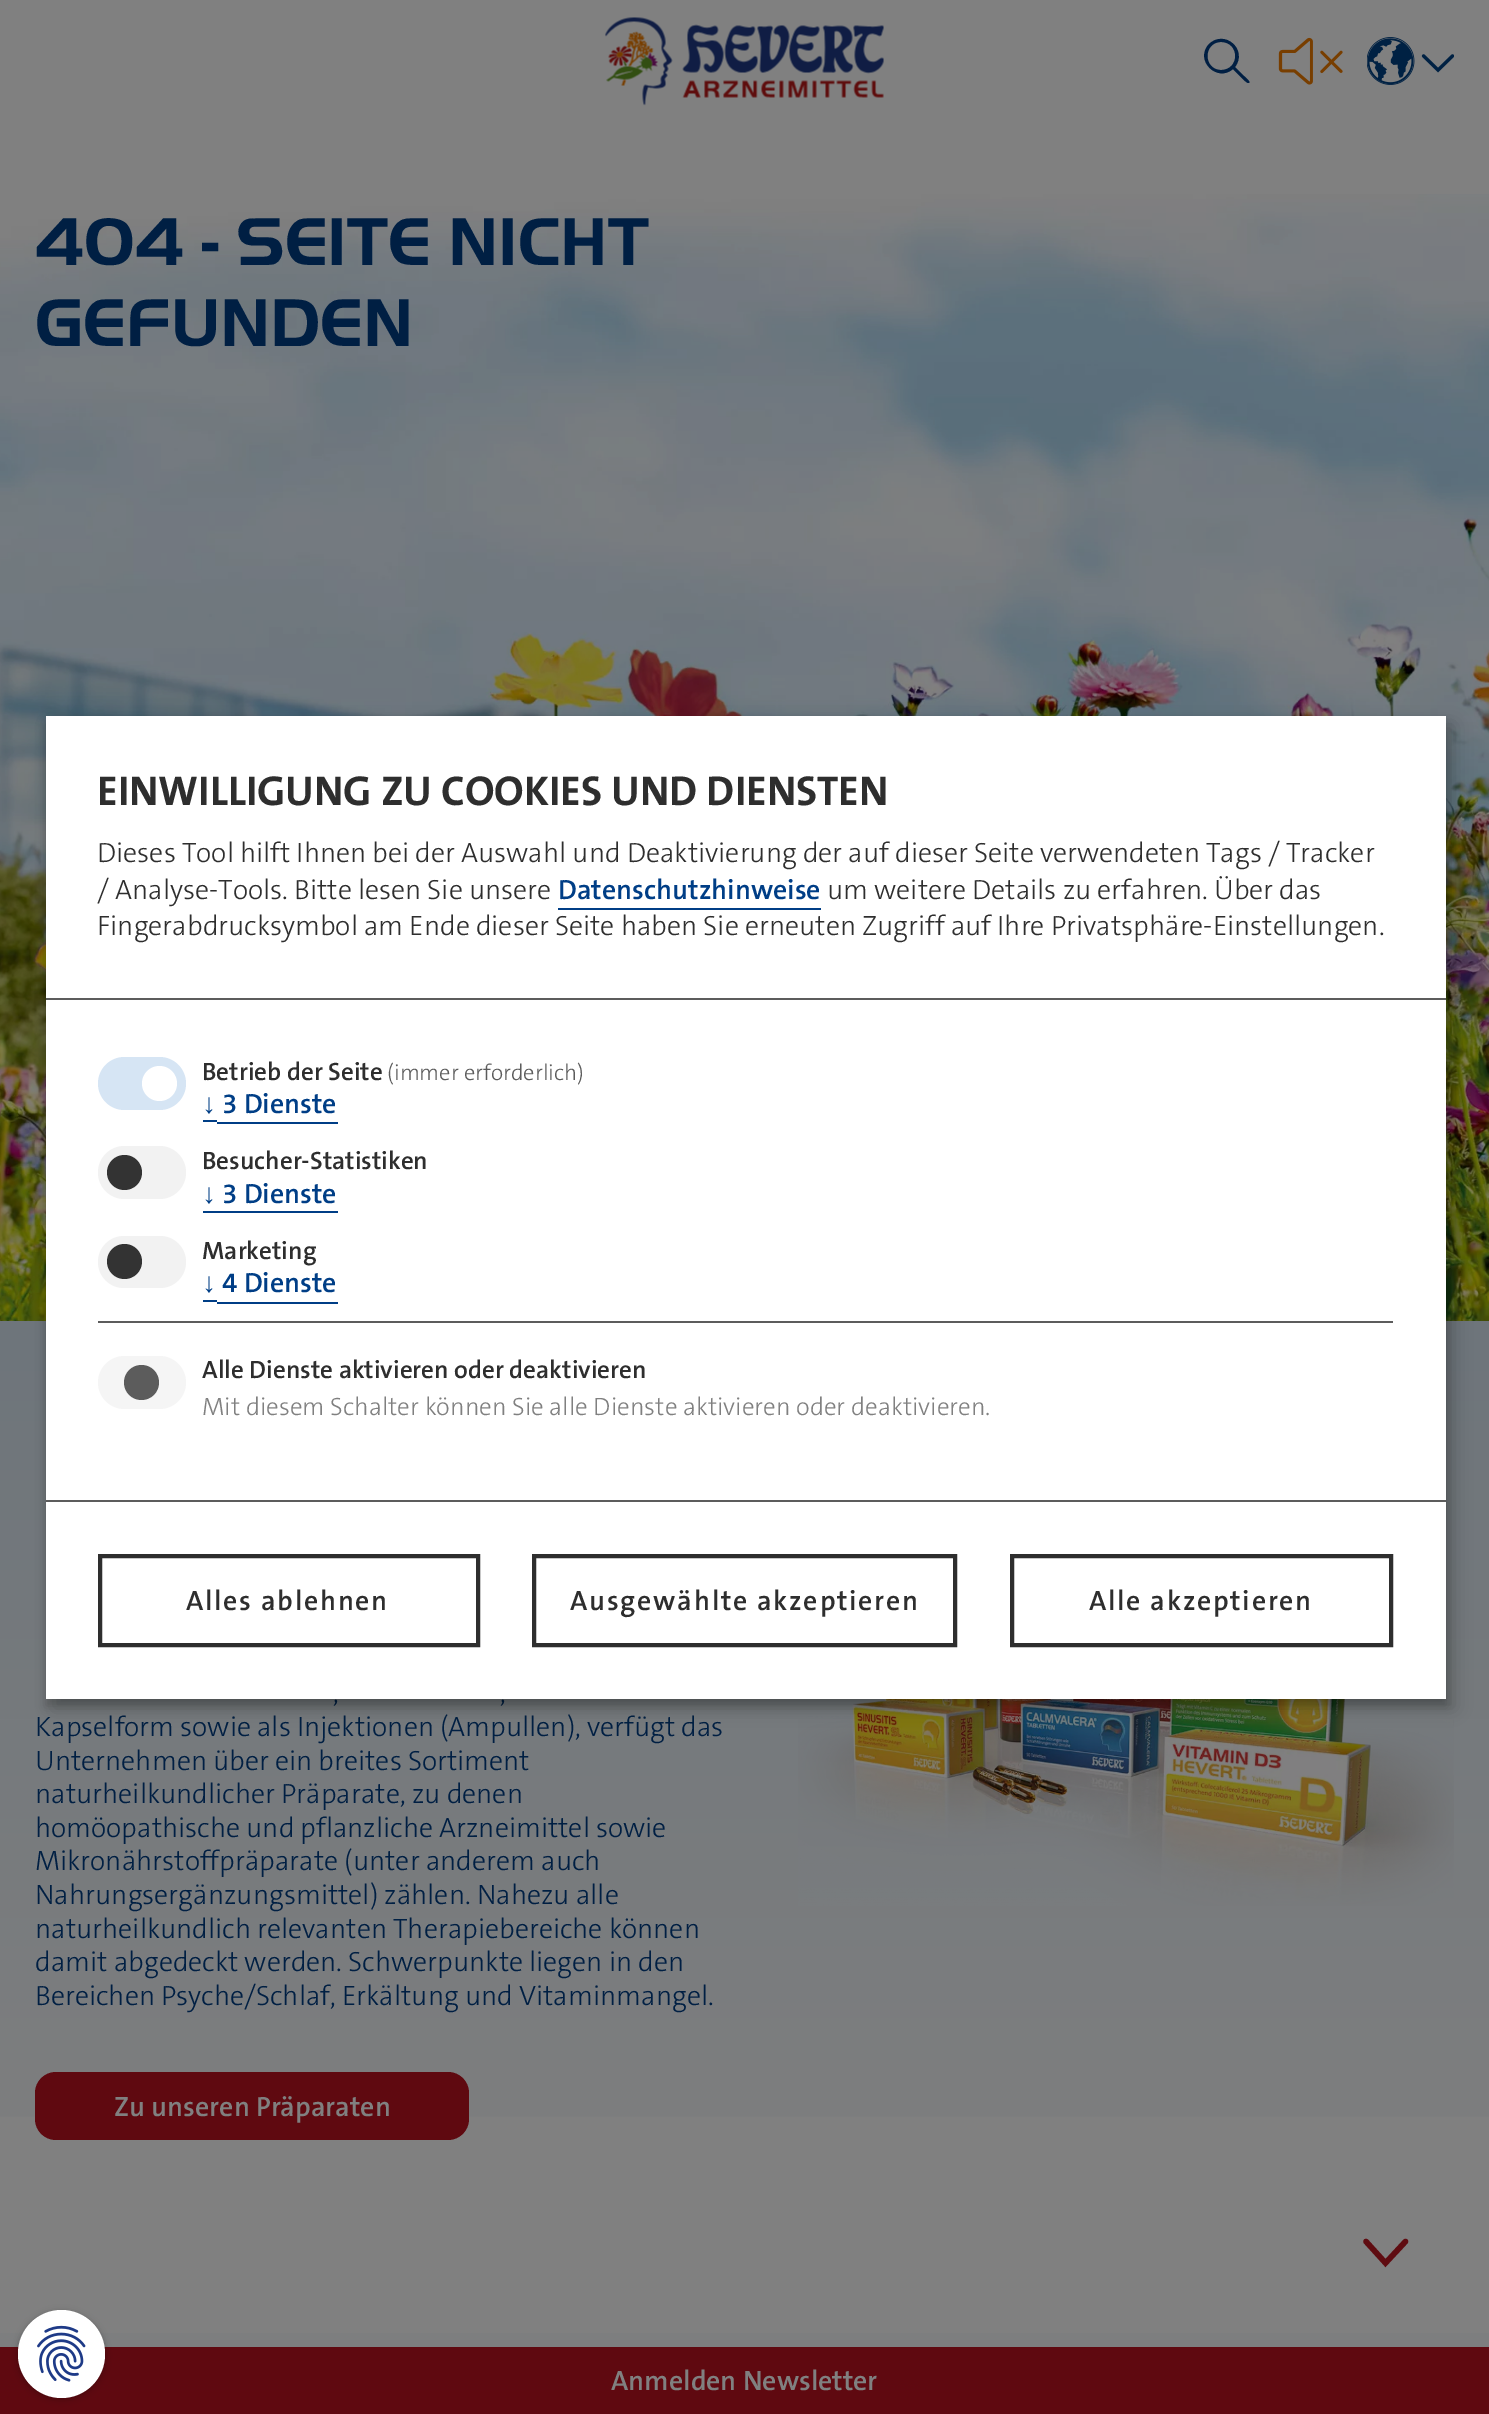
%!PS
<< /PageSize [1489 2414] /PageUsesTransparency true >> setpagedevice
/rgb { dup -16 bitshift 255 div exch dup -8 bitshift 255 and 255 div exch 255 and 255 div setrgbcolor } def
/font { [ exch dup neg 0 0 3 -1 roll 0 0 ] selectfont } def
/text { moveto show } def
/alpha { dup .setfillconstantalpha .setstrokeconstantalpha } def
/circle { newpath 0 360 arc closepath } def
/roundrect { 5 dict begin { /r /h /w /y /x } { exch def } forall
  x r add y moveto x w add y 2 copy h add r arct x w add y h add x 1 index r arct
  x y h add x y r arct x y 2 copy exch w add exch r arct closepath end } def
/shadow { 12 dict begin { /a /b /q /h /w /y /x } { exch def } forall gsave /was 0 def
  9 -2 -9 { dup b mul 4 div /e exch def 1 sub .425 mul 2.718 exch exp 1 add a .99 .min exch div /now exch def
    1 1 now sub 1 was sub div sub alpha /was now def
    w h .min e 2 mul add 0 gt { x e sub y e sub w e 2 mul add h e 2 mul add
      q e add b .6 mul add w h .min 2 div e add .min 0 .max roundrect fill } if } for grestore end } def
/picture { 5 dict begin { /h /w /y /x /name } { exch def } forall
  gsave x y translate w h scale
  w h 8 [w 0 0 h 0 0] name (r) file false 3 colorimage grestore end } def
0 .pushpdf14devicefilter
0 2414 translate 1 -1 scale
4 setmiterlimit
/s1 { /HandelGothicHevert-Bold 70 font 16#001F43 rgb } def
/s2 { /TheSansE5-Light 28 font 16#001F43 rgb } def
/s3 { /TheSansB-SemiBold 28 font 16#808080 rgb } def
/s4 { /TheSansB-Bold 42 font 16#2E2E2E rgb } def
/s5 { /TheSansE5-Light 28 font 16#2E2E2E rgb } def
/s6 { /TheSansB-SemiBold 28 font 16#003E86 rgb } def
/s7 { /TheSansB-SemiBold 25.2 font 16#2E2E2E rgb } def
/s8 { /TheSansE5-Light 22.5 font 16#5C5C5C rgb } def
/s9 { /LiberationSans-Bold 28 font 16#003E86 rgb } def
/s10 { /TheSansE5-Light 25.2 font 16#808080 rgb } def
16#808080 rgb
0 0 1489 2414 rectfill
(pic1.raw) 605 17 279 89 picture
16#001F43 rgb
1248 83 moveto 1246 83 1235 71 1233 69 curveto 1217 83 1194 60 1209 44 curveto 1225 29 1248 50 1235 67 curveto 1244 76 lineto 1247 79 1252 83 1248 83 curveto closepath 1221 42 moveto 1203 42 1203 70 1221 70 curveto 1240 70 1240 42 1221 42 curveto closepath fill
(pic2.raw) 1278 37 65 48 picture
(pic3.raw) 1367 37 87 48 picture
(pic4.raw) 0 194 1489 1127 picture
s1
(404 - SEITE NICHT) 35 265 text
(GEFUNDEN) 35 346 text
gsave 0 1321 moveto 1489 1321 lineto 1489 2117 lineto 0 2117 lineto closepath clip newpath
<< /ShadingType 2 /ColorSpace /DeviceRGB /Coords [745 1321 745 2245] /Extend [true true] /Function << /FunctionType 2 /Domain [0 1] /C0 [0.431 0.459 0.482] /C1 [0.502 0.502 0.502] /N 1 >> >> shfill grestore
s2
(,) 333 1702 text
(,) 500 1702 text
(Kapselform sowie als Injektionen \(Ampullen\), verfügt das) 35 1736 text
(Unternehmen über ein breites Sortiment) 35 1770 text
(naturheilkundlicher Präparate, zu denen) 35 1803 text
(homöopathische und pflanzliche Arzneimittel sowie) 35 1837 text
(Mikronährstoffpräparate \(unter anderem auch) 35 1870 text
(Nahrungsergänzungsmittel\) zählen. Nahezu alle) 35 1904 text
(naturheilkundlich relevanten Therapiebereiche können) 35 1938 text
(damit abgedeckt werden. Schwerpunkte liegen in den) 35 1971 text
(Bereichen Psyche/Schlaf, Erkältung und Vitaminmangel.) 35 2005 text
16#5F0910 rgb
35 2072 434 68 21 roundrect fill
s3
(Zu unseren Präparaten) 114 2116 text
(pic5.raw) 798 1699 656 207 picture
16#000000 rgb
54 725 1400 983 0 9 0.19 shadow
46 723 1400 983 0 5 0.2 shadow
16#FFFFFF rgb
46 716 1400 983 rectfill
16#5C5C5C rgb
46 998 1400 2 rectfill
s4
(EINWILLIGUNG ZU COOKIES UND DIENSTEN) 97 805 text
s5
(Dieses Tool hilft Ihnen bei der Auswahl und Deaktivierung der auf dieser Seite verwendeten Tags / Tracker) 97 862 text
(/ Analyse-Tools. Bitte lesen Sie unsere) 97 899 text
s6
(Datenschutzhinweise) 558 899 text
s5
(um weitere Details zu erfahren. Über das) 827 899 text
(Fingerabdrucksymbol am Ende dieser Seite haben Sie erneuten Zugriff auf Ihre Privatsphäre-Einstellungen.) 97 935 text
16#003E86 rgb
558 908 263 2 rectfill
16#D6E5F4 rgb
98 1057 88 53 26.5 roundrect fill
16#FFFFFF rgb
159.5 1083.5 17.5 circle fill
s7
(Betrieb der Seite) 202 1080 text
s8
(\(immer erforderlich\)) 387 1080 text
16#003E86 rgb
203 1120 14 2 rectfill
217 1122 121 2 rectfill
s9
(↓) 202 1113 text
s6
(3 Dienste) 222 1113 text
16#F2F2F2 rgb
98 1146 88 53 26.5 roundrect fill
16#333333 rgb
124.5 1172.5 17.5 circle fill
s7
(Besucher-Statistiken) 202 1169 text
16#003E86 rgb
203 1211 135 2 rectfill
s9
(↓) 202 1203 text
s6
(3 Dienste) 222 1203 text
16#F2F2F2 rgb
98 1236 88 52 26 roundrect fill
16#333333 rgb
124.5 1261.5 17.5 circle fill
s7
(Marketing) 202 1259 text
16#003E86 rgb
203 1300 14 2 rectfill
217 1302 121 2 rectfill
s9
(↓) 202 1292 text
s6
(4 Dienste) 222 1292 text
16#5C5C5C rgb
98 1321 1295 2 rectfill
16#F5F5F5 rgb
98 1356 88 53 26.5 roundrect fill
16#5C5C5C rgb
141.5 1382.5 17.5 circle fill
s7
(Alle Dienste aktivieren oder deaktivieren) 202 1378 text
s10
(Mit diesem Schalter können Sie alle Dienste aktivieren oder deaktivieren.) 202 1415 text
16#5C5C5C rgb
46 1500 1400 2 rectfill
16#2E2E2E rgb
4 setlinewidth
100 1556 378 89 rectstroke
/TheSansB-SemiBold 28 font
186 1610 moveto 1.75 0 (Alles ablehnen) ashow
534 1556 421 89 rectstroke
570 1610 moveto 1.75 0 (Ausgewählte akzeptieren) ashow
1012 1556 379 89 rectstroke
1089 1610 moveto 1.75 0 (Alle akzeptieren) ashow
gsave 0 2333 moveto 1489 2333 lineto 1489 2347 lineto 0 2347 lineto closepath clip newpath
<< /ShadingType 2 /ColorSpace /DeviceRGB /Coords [745 2244 745 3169] /Extend [true true] /Function << /FunctionType 2 /Domain [0 1] /C0 [0.502 0.502 0.502] /C1 [0.4 0.439 0.475] /N 1 >> >> shfill grestore
16#5F0C11 rgb
5.5 setlinewidth
1 setlinecap
1366 2241.5 moveto 1385.5 2263 lineto 1405.5 2241.5 lineto stroke
16#5F0910 rgb
0 2347 1489 67 rectfill
s3
(Anmelden Newsletter) 611 2390 text
16#000000 rgb
18 2312 87 87 43.5 3.5 0.3 shadow
16#FFFFFF rgb
18 2310 87 88 43.5 roundrect fill
(pic6.raw) 37 2325 49 57 picture
.poppdf14devicefilter showpage
